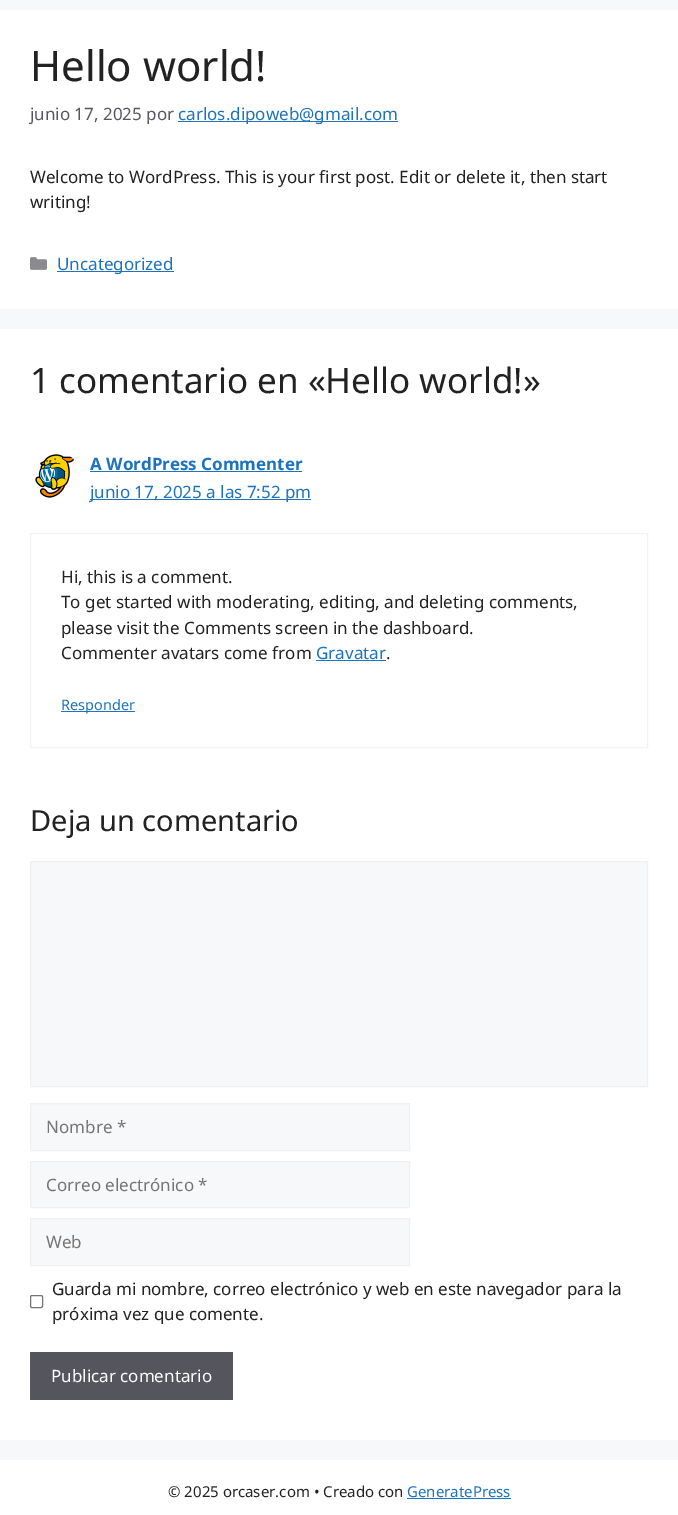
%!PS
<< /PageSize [678 1515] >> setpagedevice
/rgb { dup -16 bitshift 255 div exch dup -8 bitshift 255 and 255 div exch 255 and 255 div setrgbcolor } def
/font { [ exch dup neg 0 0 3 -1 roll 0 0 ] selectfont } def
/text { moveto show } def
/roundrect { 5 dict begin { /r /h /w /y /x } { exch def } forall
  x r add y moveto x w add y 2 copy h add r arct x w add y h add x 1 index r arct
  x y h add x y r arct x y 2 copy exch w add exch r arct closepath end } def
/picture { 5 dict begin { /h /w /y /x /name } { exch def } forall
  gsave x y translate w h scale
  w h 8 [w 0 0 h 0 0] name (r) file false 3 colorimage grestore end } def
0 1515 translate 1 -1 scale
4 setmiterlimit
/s1 { /NotoSans-Regular 42 font 16#222222 rgb } def
/s2 { /NotoSans-Regular 17 font 16#575760 rgb } def
/s3 { /NotoSans-Regular 17 font 16#1E73BE rgb } def
/s4 { /NotoSans-Regular 17 font 16#222222 rgb } def
/s5 { /NotoSans-Regular 35 font 16#222222 rgb } def
/s6 { /NotoSans-Bold 17 font 16#1E73BE rgb } def
/s7 { /NotoSans-Regular 14.5 font 16#1E73BE rgb } def
/s8 { /NotoSans-Regular 29 font 16#222222 rgb } def
/s9 { /NotoSans-Regular 17 font 16#757575 rgb } def
/s10 { /NotoSans-Regular 17 font 16#FFFFFF rgb } def
/s11 { /NotoSans-Regular 15 font 16#222222 rgb } def
/s12 { /NotoSans-Regular 15 font 16#1E73BE rgb } def
16#F7F8F9 rgb
0 0 678 1515 rectfill
16#FFFFFF rgb
0 10 678 299 rectfill
s1
(Hello world!) 30 81 text
s2
(junio 17, 2025 por) 30 120 text
16#1E73BE rgb
178 121 220 1 rectfill
(carlos.dipoweb@gmail.com) 178 120 text
s4
(Welcome to WordPress. This is your first post. Edit or delete it, then start) 30 183 text
(writing!) 30 208 text
(pic1.raw) 30 257 17 13 picture
16#1E73BE rgb
57 271 117 1 rectfill
(Uncategorized) 57 270 text
16#FFFFFF rgb
0 329 678 1111 rectfill
s5
(1 comentario en «Hello world!») 30 393 text
(pic2.raw) 35 454 39 44 picture
s6
(A WordPress Commenter) 90 470 text
90 471 212 1 rectfill
90 499 221 1 rectfill
s3
(junio 17, 2025 a las 7:52 pm) 90 498 text
16#F2F2F2 rgb
30.5 533.5 617 214 rectstroke
s4
(Hi, this is a comment.) 61 583 text
(To get started with moderating, editing, and deleting comments,) 61 608 text
(please visit the Comments screen in the dashboard.) 61 634 text
(Commenter avatars come from) 61 659 text
s3
(Gravatar) 316 659 text
316 660 70 1 rectfill
s4
(.) 386 659 text
16#1E73BE rgb
61 711 74 1 rectfill
s7
(Responder) 61 710 text
s8
(Deja un comentario) 30 831 text
16#F7F8F9 rgb
30.5 861.5 moveto 647.5 861.5 lineto 647.5 1086.5 lineto 30.5 1086.5 lineto closepath gsave fill grestore
16#F0F0F0 rgb
stroke
16#F7F8F9 rgb
30.5 1103.5 moveto 409.5 1103.5 lineto 409.5 1150.5 lineto 30.5 1150.5 lineto closepath gsave fill grestore
16#F0F0F0 rgb
stroke
s9
(Nombre *) 46 1133 text
16#F7F8F9 rgb
30.5 1161.5 moveto 409.5 1161.5 lineto 409.5 1207.5 lineto 30.5 1207.5 lineto closepath gsave fill grestore
16#F0F0F0 rgb
stroke
s9
(Correo electrónico *) 46 1191 text
16#F7F8F9 rgb
30.5 1218.5 moveto 409.5 1218.5 lineto 409.5 1265.5 lineto 30.5 1265.5 lineto closepath gsave fill grestore
16#F0F0F0 rgb
stroke
s9
(Web) 46 1248 text
16#767676 rgb
30.5 1295.5 12 12 1.5 roundrect stroke
s4
(Guarda mi nombre, correo electrónico y web en este navegador para la) 52 1295 text
(próxima vez que comente.) 52 1320 text
16#55555E rgb
30 1352 203 48 rectfill
s10
(Publicar comentario) 51 1382 text
0 1460 678 55 rectfill
s11
(© 2025 orcaser.com • Creado con) 168 1497 text
s12
(GeneratePress) 407 1497 text
407 1498 104 1 rectfill
showpage
